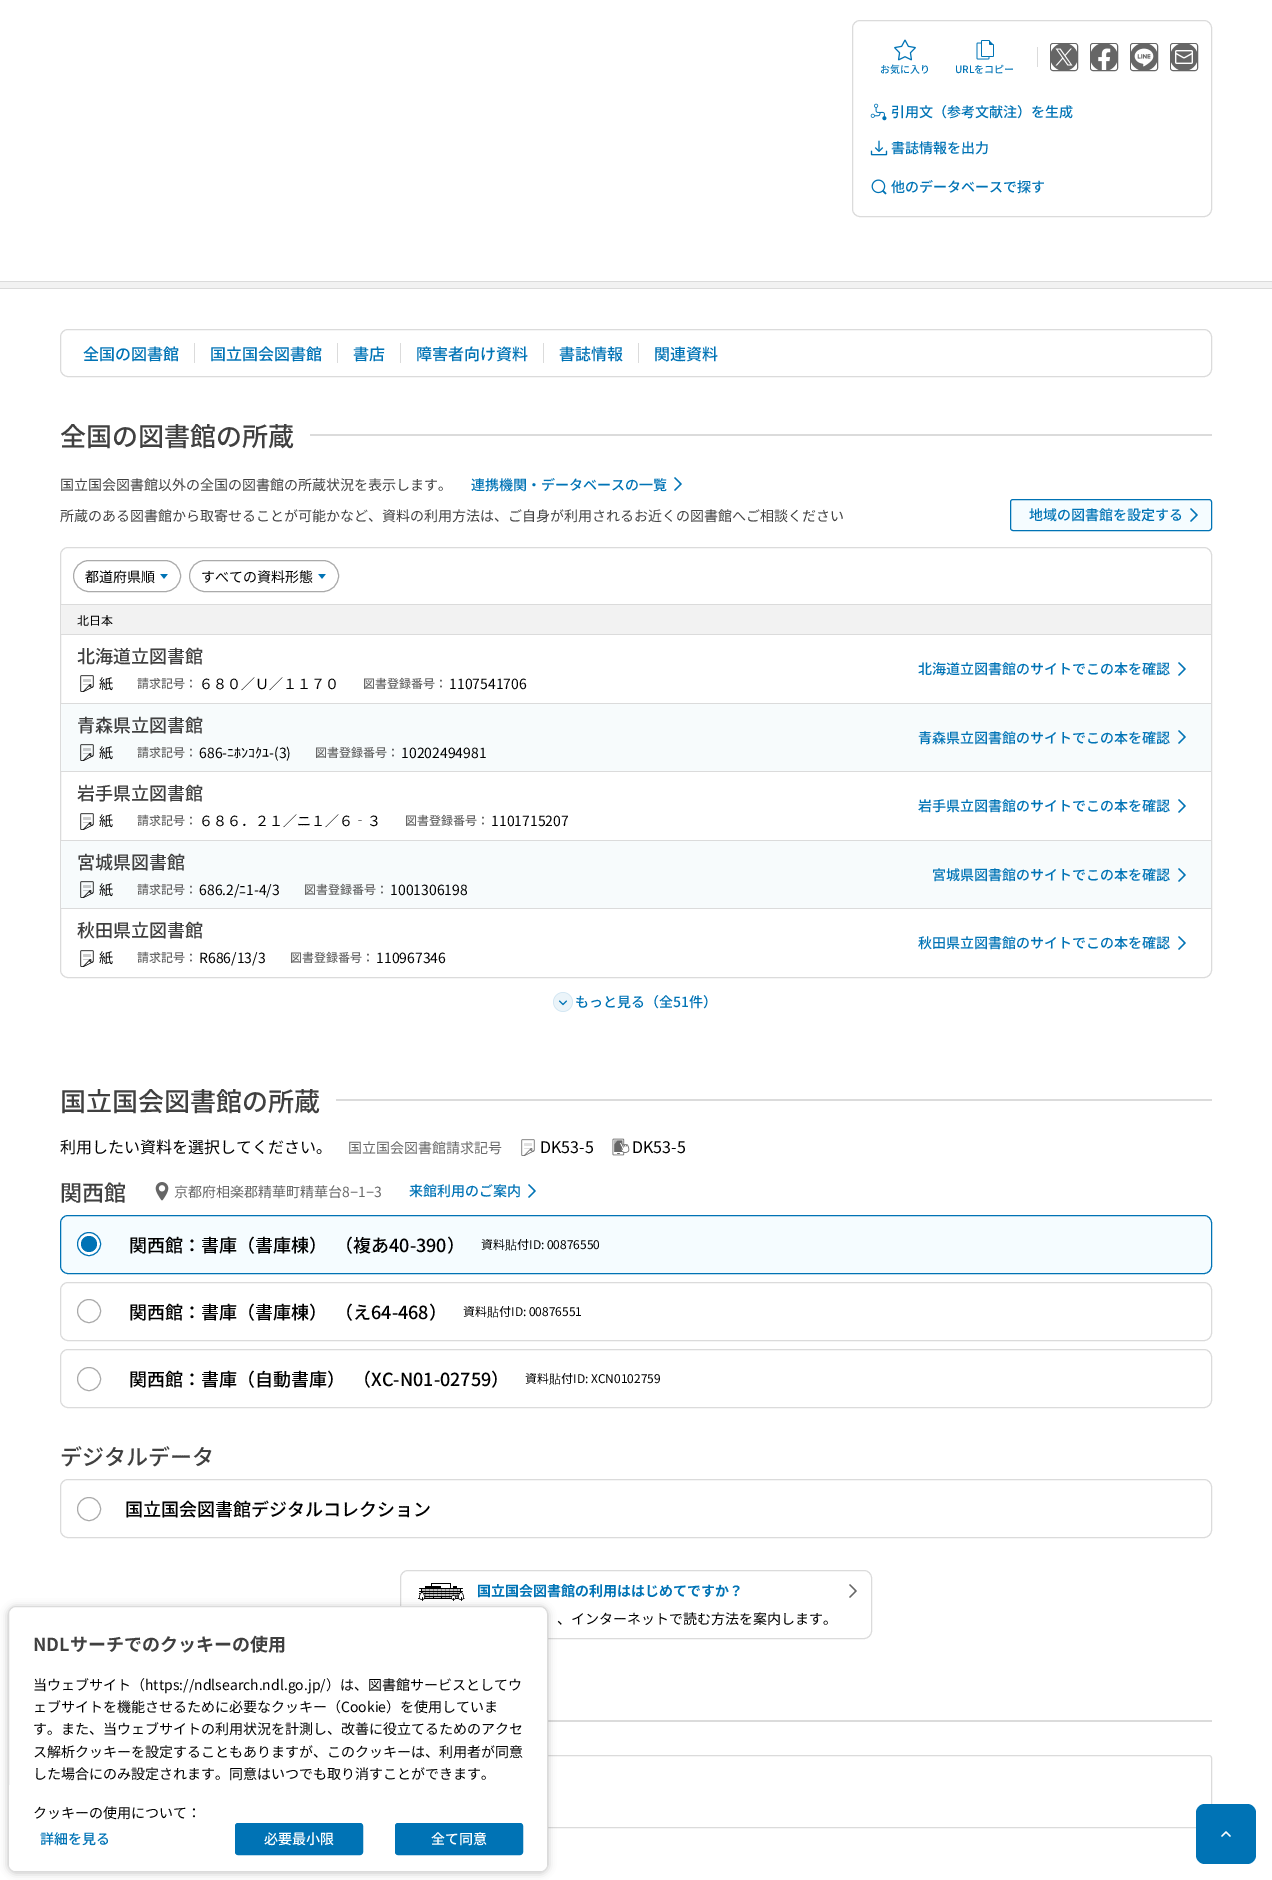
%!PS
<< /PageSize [1272 1880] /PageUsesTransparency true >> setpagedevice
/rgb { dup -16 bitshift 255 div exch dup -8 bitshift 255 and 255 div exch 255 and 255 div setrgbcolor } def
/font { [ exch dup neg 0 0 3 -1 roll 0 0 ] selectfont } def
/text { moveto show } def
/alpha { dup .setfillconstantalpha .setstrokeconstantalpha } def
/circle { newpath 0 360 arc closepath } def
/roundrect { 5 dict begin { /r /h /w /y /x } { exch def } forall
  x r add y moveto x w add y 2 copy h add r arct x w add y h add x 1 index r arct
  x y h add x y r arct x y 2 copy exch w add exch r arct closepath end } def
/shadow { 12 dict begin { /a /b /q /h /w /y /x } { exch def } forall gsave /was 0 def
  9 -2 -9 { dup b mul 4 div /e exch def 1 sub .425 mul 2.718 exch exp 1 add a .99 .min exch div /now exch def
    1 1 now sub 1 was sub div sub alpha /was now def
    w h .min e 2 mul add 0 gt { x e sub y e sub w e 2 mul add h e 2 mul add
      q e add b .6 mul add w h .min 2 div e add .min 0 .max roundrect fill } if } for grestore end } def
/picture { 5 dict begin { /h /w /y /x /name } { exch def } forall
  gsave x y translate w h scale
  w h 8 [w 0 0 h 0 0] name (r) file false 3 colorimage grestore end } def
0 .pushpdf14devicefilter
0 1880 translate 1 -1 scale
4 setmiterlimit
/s1 { /NotoSansJP-Medium 10 font 16#0073B5 rgb } def
/s2 { /NotoSansJP-Medium 14 font 16#0073B5 rgb } def
/s3 { /NotoSansJP-Medium 16 font 16#0073B5 rgb } def
/s4 { /NotoSansJP-Medium 26 font 16#404040 rgb } def
/s5 { /NotoSansJP-Regular 14 font 16#404040 rgb } def
/s6 { /NotoSansJP-Regular 14 font 16#000000 rgb } def
/s7 { /NotoSansJP-Regular 12 font 16#000000 rgb } def
/s8 { /NotoSansJP-Medium 18 font 16#404040 rgb } def
/s9 { /NotoSansJP-Medium 12 font 16#666666 rgb } def
/s10 { /IPAPGothic-Regular 14 font 16#000000 rgb } def
/s11 { /NotoSansJP-Regular 16 font 16#000000 rgb } def
/s12 { /NotoSansJP-Regular 14 font 16#666666 rgb } def
/s13 { /NotoSansJP-Medium 22 font 16#404040 rgb } def
/s14 { /LiberationSans-Regular 14 font 16#666666 rgb } def
/s15 { /NotoSansJP-Medium 18 font 16#000000 rgb } def
/s16 { /WenQuanYiZenHei-Medium 12 font 16#000000 rgb } def
/s17 { /NotoSansJP-Bold 14 font 16#0073B5 rgb } def
/s18 { /NotoSansJP-Bold 18 font 16#404040 rgb } def
/s19 { /NotoSansJP-Medium 14 font 16#FFFFFF rgb } def
16#FFFFFF rgb
0 0 1272 1880 rectfill
16#DBDBDB rgb
852.5 20.5 359 196 7.5 roundrect stroke
1037 47 1 20 rectfill
16#666666 rgb
1050.5 43.5 27 27 2.5 roundrect stroke
(pic1.raw) 1051 44 26 26 picture
1090.5 43.5 27 27 2.5 roundrect stroke
(pic2.raw) 1091 44 26 26 picture
1130.5 43.5 27 27 2.5 roundrect stroke
(pic3.raw) 1131 44 26 26 picture
1170.5 43.5 27 27 2.5 roundrect stroke
(pic4.raw) 1171 44 26 26 picture
(pic5.raw) 894 39 22 22 picture
s1
(お気に入り) 880 73 text
(pic6.raw) 976 40 18 20 picture
(URLをコピー) 955 73 text
(pic7.raw) 870 103 17 18 picture
s2
(引用文（参考文献注）を生成) 891 117 text
(pic8.raw) 870 140 18 16 picture
(書誌情報を出力) 891 153 text
(pic9.raw) 871 179 16 16 picture
(他のデータベースで探す) 891 192 text
16#F2F2F2 rgb
0 282 1272 6 rectfill
16#DBDBDB rgb
0 281 1272 1 rectfill
0 288 1272 1 rectfill
60.5 329.5 1151 47 7.5 roundrect stroke
s3
(全国の図書館) 83 360 text
16#DBDBDB rgb
194 343 1 20 rectfill
s3
(国立国会図書館) 210 360 text
16#DBDBDB rgb
337 343 1 20 rectfill
s3
(書店) 353 360 text
16#DBDBDB rgb
400 343 1 20 rectfill
s3
(障害者向け資料) 416 360 text
16#DBDBDB rgb
543 343 1 20 rectfill
s3
(書誌情報) 559 360 text
16#DBDBDB rgb
638 343 1 20 rectfill
s3
(関連資料) 654 360 text
s4
(全国の図書館の所蔵) 60 446 text
16#DBDBDB rgb
310 434 902 2 rectfill
s5
(国立国会図書館以外の全国の図書館の所蔵状況を表示します。) 60 490 text
s2
(連携機関・データベースの一覧) 471 490 text
(pic10.raw) 674 477 8 14 picture
s5
(所蔵のある図書館から取寄せることが可能かなど、資料の利用方法は、ご自身が利用されるお近くの図書館へご相談ください) 60 521 text
16#F5FCFF rgb
1010.5 499.5 201 31 2.5 roundrect gsave fill grestore
16#0073B5 rgb
stroke
s2
(地域の図書館を設定する) 1029 520 text
(pic11.raw) 1190 508 8 14 picture
16#DBDBDB rgb
60.5 547.5 1151 430 7.5 roundrect stroke
(pic12.raw) 160 574 8 5 picture
16#AAAAAA rgb
73.5 560.5 107 31 15.5 roundrect stroke
s6
(都道府県順) 85 582 text
(pic12.raw) 318 574 8 5 picture
16#AAAAAA rgb
189.5 560.5 149 31 15.5 roundrect stroke
s6
(すべての資料形態) 201 582 text
16#F2F2F2 rgb
61 605 1150 29 rectfill
16#DBDBDB rgb
61 604 1150 1 rectfill
s7
(北日本) 77 625 text
16#DBDBDB rgb
61 634 1150 1 rectfill
s8
(北海道立図書館) 77 663 text
(pic13.raw) 80 675 14 17 picture
s6
(紙) 99 689 text
s9
(請求記号：) 137 688 text
s6
(６８０／Ｕ／１１７０) 199 689 text
s9
(図書登録番号：) 363 688 text
s6
(1107541706) 449 689 text
s2
(北海道立図書館のサイトでこの本を確認) 918 674 text
(pic10.raw) 1178 662 8 14 picture
16#F7FBFC rgb
61 704 1150 67 rectfill
16#DBDBDB rgb
61 703 1150 1 rectfill
s8
(青森県立図書館) 77 732 text
(pic14.raw) 80 744 14 17 picture
s6
(紙) 99 758 text
s9
(請求記号：) 137 757 text
s6
(686-) 199 758 text
s10
(ﾆﾎﾝｺｸﾕ) 227 758 text
s6
(-\(3\)) 269 758 text
s9
(図書登録番号：) 315 757 text
s6
(10202494981) 401 758 text
s2
(青森県立図書館のサイトでこの本を確認) 918 743 text
(pic15.raw) 1178 730 8 14 picture
16#DBDBDB rgb
61 771 1150 1 rectfill
s8
(岩手県立図書館) 77 800 text
(pic13.raw) 80 813 14 17 picture
s6
(紙) 99 826 text
s9
(請求記号：) 137 825 text
s6
(６８６．２１／ニ１／６‐３) 199 826 text
s9
(図書登録番号：) 405 825 text
s6
(1101715207) 491 826 text
s2
(岩手県立図書館のサイトでこの本を確認) 918 811 text
(pic10.raw) 1178 799 8 14 picture
16#F7FBFC rgb
61 841 1150 67 rectfill
16#DBDBDB rgb
61 840 1150 1 rectfill
s8
(宮城県図書館) 77 869 text
(pic14.raw) 80 881 14 17 picture
s6
(紙) 99 895 text
s9
(請求記号：) 137 894 text
s6
(686.2/) 199 895 text
s10
(ﾆ) 239 895 text
s6
(1-4/3) 246 895 text
s9
(図書登録番号：) 304 894 text
s6
(1001306198) 390 895 text
s2
(宮城県図書館のサイトでこの本を確認) 932 880 text
(pic15.raw) 1178 868 8 14 picture
16#DBDBDB rgb
61 908 1150 1 rectfill
s8
(秋田県立図書館) 77 937 text
(pic13.raw) 80 950 14 17 picture
s6
(紙) 99 963 text
s9
(請求記号：) 137 962 text
s6
(R686/13/3) 199 963 text
s9
(図書登録番号：) 290 962 text
s6
(110967346) 376 963 text
s2
(秋田県立図書館のサイトでこの本を確認) 918 948 text
(pic10.raw) 1178 936 8 14 picture
(pic16.raw) 553 992 20 20 picture
(もっと見る（全51件）) 575 1007 text
s4
(国立国会図書館の所蔵) 60 1111 text
16#DBDBDB rgb
336 1099 876 2 rectfill
s11
(利用したい資料を選択してください。) 60 1153 text
s12
(国立国会図書館請求記号) 348 1153 text
(pic17.raw) 521 1139 14 17 picture
s11
(DK53-5) 540 1153 text
(pic18.raw) 612 1138 18 18 picture
(DK53-5) 632 1153 text
s13
(関西館) 60 1201 text
(pic19.raw) 155 1182 14 19 picture
s12
(京都府相楽郡精華町精華台8) 174 1197 text
s14
(−) 350 1197 text
s12
(1) 358 1197 text
s14
(−) 366 1197 text
s12
(3) 374 1197 text
s2
(来館利用のご案内) 409 1196 text
(pic10.raw) 528 1184 8 14 picture
16#F5FCFF rgb
60.5 1215.5 1151 58 7.5 roundrect gsave fill grestore
16#0073B5 rgb
stroke
16#FFFFFF rgb
89 1244 11.5 circle gsave fill grestore
16#0073B5 rgb
stroke
89 1244 8 circle fill
s15
(関西館：書庫（書庫棟）) 129 1252 text
(（複あ40-390）) 335 1252 text
s7
(資料) 481 1249 text
s16
(貼) 505 1249 text
s7
(付ID: 00876550) 517 1249 text
16#DBDBDB rgb
60.5 1282.5 1151 58 7.5 roundrect stroke
16#AAAAAA rgb
89 1311 11.5 circle stroke
s15
(関西館：書庫（書庫棟）) 129 1319 text
(（え64-468）) 335 1319 text
s7
(資料) 463 1316 text
s16
(貼) 487 1316 text
s7
(付ID: 00876551) 499 1316 text
16#DBDBDB rgb
60.5 1349.5 1151 58 7.5 roundrect stroke
16#AAAAAA rgb
89 1379 11.5 circle stroke
s15
(関西館：書庫（自動書庫）) 129 1386 text
(（XC-N01-02759）) 353 1386 text
s7
(資料) 525 1383 text
s16
(貼) 549 1383 text
s7
(付ID: XCN0102759) 561 1383 text
s13
(デジタルデータ) 60 1465 text
16#DBDBDB rgb
60.5 1479.5 1151 58 7.5 roundrect stroke
16#AAAAAA rgb
89 1509 11.5 circle stroke
s15
(国立国会図書館デジタルコレクション) 125 1516 text
16#DBDBDB rgb
400.5 1570.5 471 68 7.5 roundrect stroke
(pic20.raw) 418 1583 47 18 picture
s17
(国立国会図書館の利用ははじめてですか？) 477 1596 text
s6
(、インターネットで読む方法を案内します。) 557 1624 text
(pic21.raw) 849 1584 8 14 picture
16#DBDBDB rgb
548 1720 664 2 rectfill
60.5 1755.5 1151 72 2.5 roundrect stroke
16#000000 rgb
8 1607 540 266 8 4 0.24 shadow
16#FFFFFF rgb
8.5 1606.5 539 265 7.5 roundrect gsave fill grestore
16#DBDBDB rgb
stroke
s18
(NDLサーチでのクッキーの使用) 33 1651 text
s6
(当ウェブサイト（https://ndlsearch.ndl.go.jp/）は、図書館サービスとしてウ) 33 1690 text
(ェブサイトを機能させるために必要なクッキー（Cookie）を使用していま) 33 1712 text
(す。また、当ウェブサイトの利用状況を計測し、改善に役立てるためのアクセ) 33 1734 text
(ス解析クッキーを設定することもありますが、このクッキーは、利用者が同意) 33 1757 text
(した場合にのみ設定されます。同意はいつでも取り消すことができます。) 33 1779 text
16#FFFFFF rgb
9 1785 moveto 547 1785 lineto 547 1864 lineto 547 1868 544 1871 540 1871 curveto 16 1871 lineto 12 1871 9 1868 9 1864 curveto closepath fill
s6
(クッキーの使用について：) 33 1818 text
s2
(詳細を見る) 40 1844 text
235.5 1823.5 127 31 2.5 roundrect gsave fill grestore
stroke
s19
(必要最小限) 264 1844 text
16#0073B5 rgb
395.5 1823.5 127 31 2.5 roundrect gsave fill grestore
stroke
s19
(全て同意) 431 1844 text
16#0073B5 rgb
1196 1804 60 60 9 roundrect fill
(pic22.raw) 1221 1831 10 6 picture
.poppdf14devicefilter showpage
